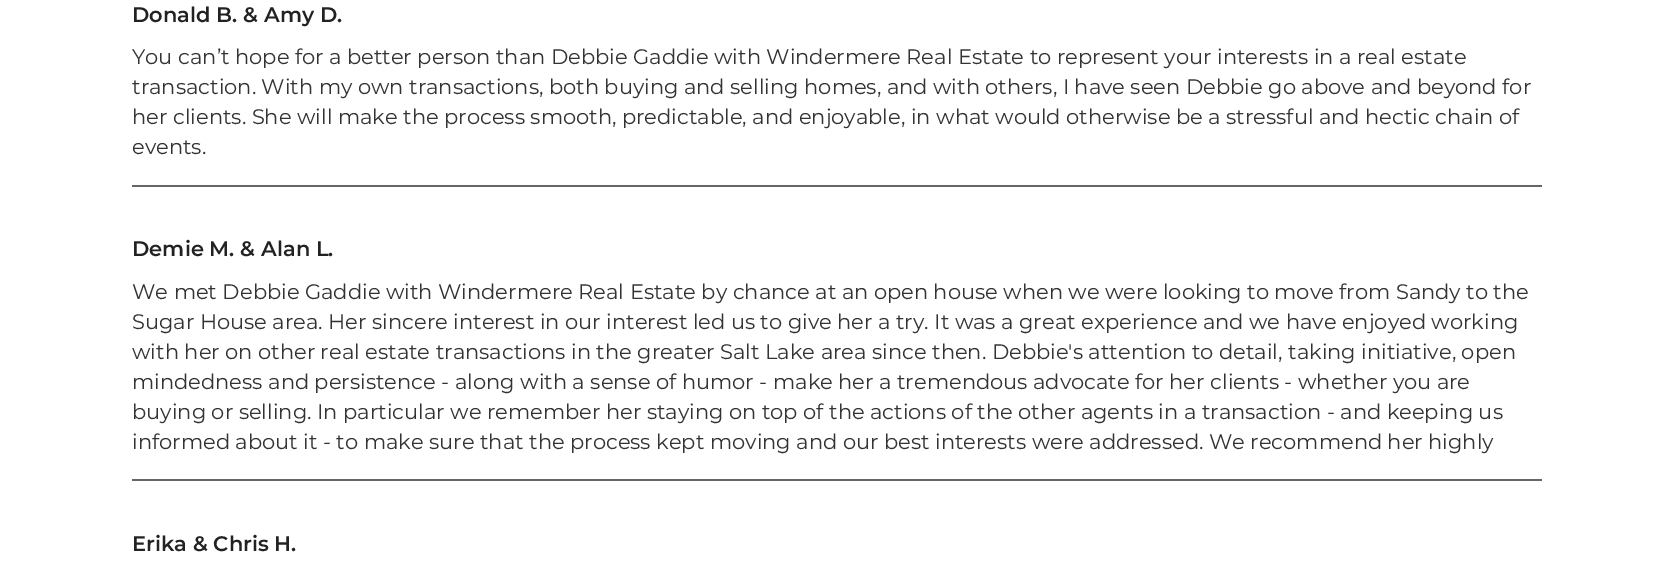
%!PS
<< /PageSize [1674 582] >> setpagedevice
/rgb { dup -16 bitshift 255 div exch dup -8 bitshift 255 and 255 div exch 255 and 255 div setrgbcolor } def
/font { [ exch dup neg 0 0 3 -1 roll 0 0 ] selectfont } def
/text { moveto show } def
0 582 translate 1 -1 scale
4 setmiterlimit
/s1 { /Montserrat-SemiBold 21 font 16#222222 rgb } def
/s2 { /Montserrat-Regular 21 font 16#333333 rgb } def
16#FFFFFF rgb
0 0 1674 582 rectfill
s1
(Donald B. & Amy D.) 132 22 text
s2
(You can’t hope for a better person than Debbie Gaddie with Windermere Real Estate to represent your interests in a real estate) 132 64 text
(transaction. With my own transactions, both buying and selling homes, and with others, I have seen Debbie go above and beyond for) 132 94 text
(her clients. She will make the process smooth, predictable, and enjoyable, in what would otherwise be a stressful and hectic chain of) 132 124 text
(events.) 132 154 text
16#666666 rgb
132 185 1410 2 rectfill
s1
(Demie M. & Alan L.) 132 256 text
s2
(We met Debbie Gaddie with Windermere Real Estate by chance at an open house when we were looking to move from Sandy to the) 132 299 text
(Sugar House area. Her sincere interest in our interest led us to give her a try. It was a great experience and we have enjoyed working) 132 329 text
(with her on other real estate transactions in the greater Salt Lake area since then. Debbie's attention to detail, taking initiative, open) 132 359 text
(mindedness and persistence - along with a sense of humor - make her a tremendous advocate for her clients - whether you are) 132 389 text
(buying or selling. In particular we remember her staying on top of the actions of the other agents in a transaction - and keeping us) 132 419 text
(informed about it - to make sure that the process kept moving and our best interests were addressed. We recommend her highly) 132 449 text
16#666666 rgb
132 479 1410 2 rectfill
s1
(Erika & Chris H.) 132 551 text
showpage
